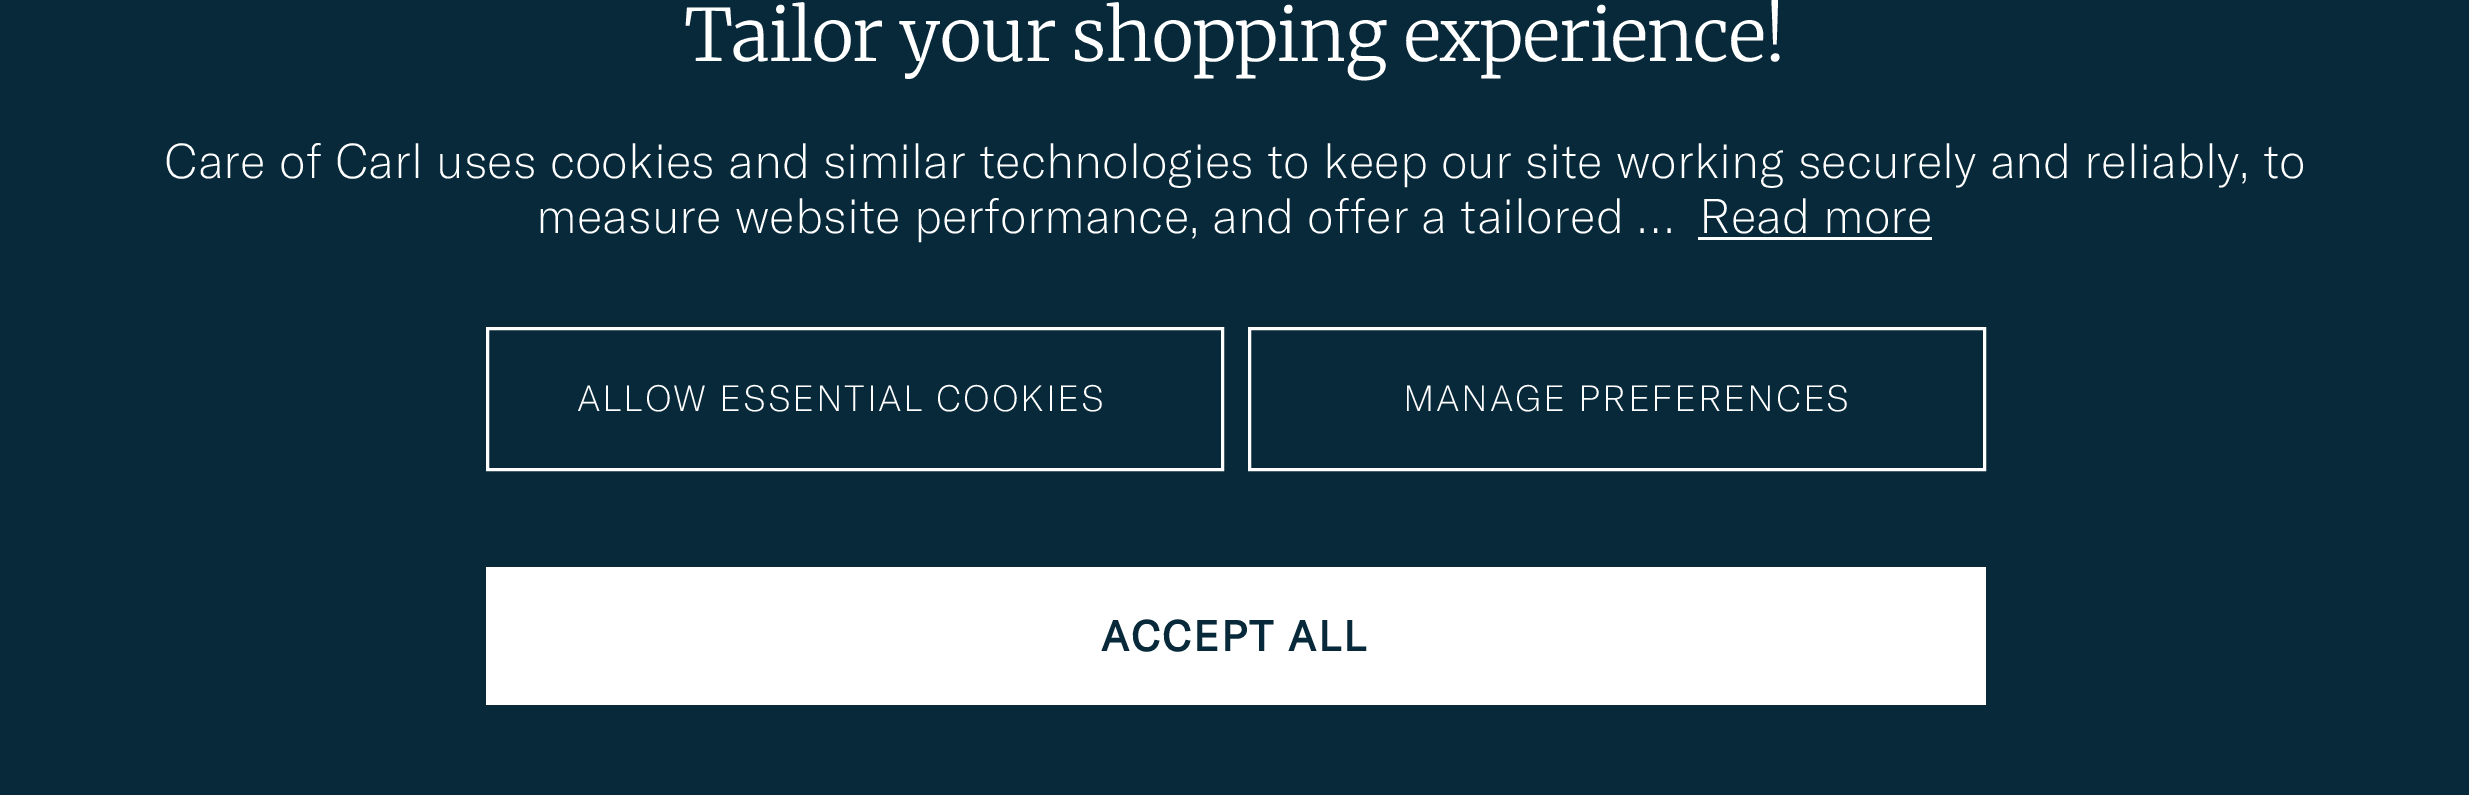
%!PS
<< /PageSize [2469 795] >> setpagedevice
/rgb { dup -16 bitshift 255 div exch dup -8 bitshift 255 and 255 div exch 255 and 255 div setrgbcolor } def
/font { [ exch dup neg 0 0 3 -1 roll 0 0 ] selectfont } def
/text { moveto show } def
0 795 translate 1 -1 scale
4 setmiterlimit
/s1 { /GTAmerica-Light 48 font 16#FFFFFF rgb } def
16#082939 rgb
0 0 2469 795 rectfill
/Merriweather-Light 72 font
16#FFFFFF rgb
684 61 moveto -0.75 0 (Tailor your shopping experience!) ashow
s1
(Care of Carl uses cookies and similar technologies to keep our site working securely and reliably, to) 164 178 text
(measure website performance, and offer a tailored …) 536 233 text
(Read more) 1699 233 text
1698 237 234 3 rectfill
3 setlinewidth
487.5 328.5 735 141 rectstroke
/GTAmerica-Light 36 font
577 411 moveto 1.8 0 (ALLOW ESSENTIAL COOKIES) ashow
1249.5 328.5 735 141 rectstroke
1403 411 moveto 1.8 0 (MANAGE PREFERENCES) ashow
486 567 1500 138 rectfill
/GTAmerica-Bold 42 font
16#082939 rgb
1101 651 moveto 2.1 0 (ACCEPT ALL) ashow
showpage
